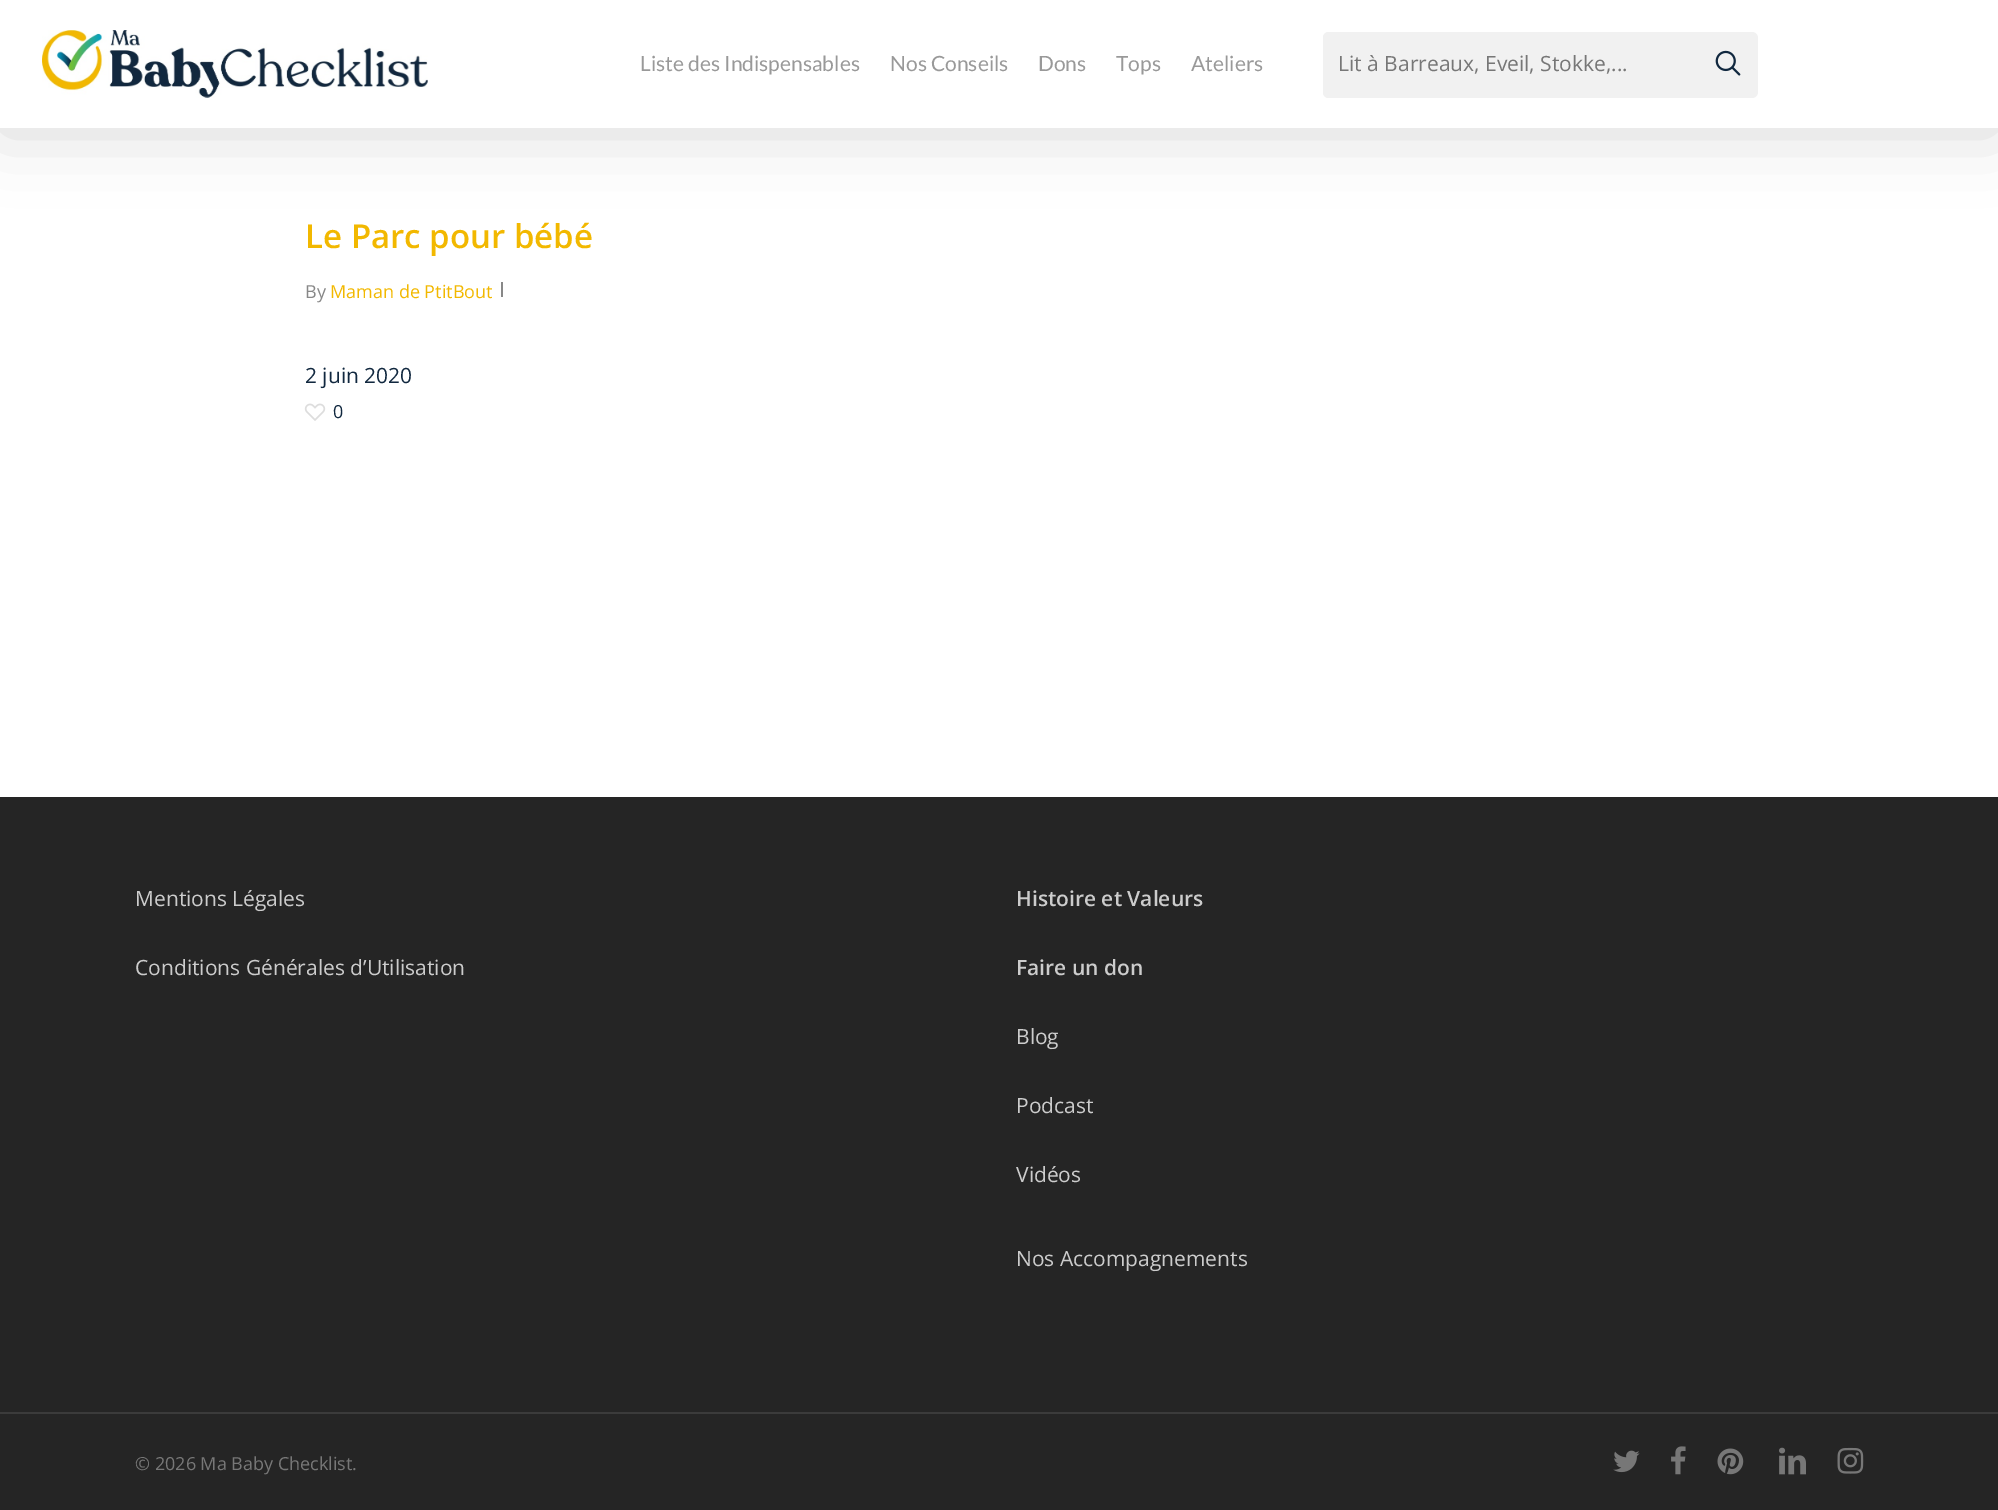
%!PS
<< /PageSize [1998 1510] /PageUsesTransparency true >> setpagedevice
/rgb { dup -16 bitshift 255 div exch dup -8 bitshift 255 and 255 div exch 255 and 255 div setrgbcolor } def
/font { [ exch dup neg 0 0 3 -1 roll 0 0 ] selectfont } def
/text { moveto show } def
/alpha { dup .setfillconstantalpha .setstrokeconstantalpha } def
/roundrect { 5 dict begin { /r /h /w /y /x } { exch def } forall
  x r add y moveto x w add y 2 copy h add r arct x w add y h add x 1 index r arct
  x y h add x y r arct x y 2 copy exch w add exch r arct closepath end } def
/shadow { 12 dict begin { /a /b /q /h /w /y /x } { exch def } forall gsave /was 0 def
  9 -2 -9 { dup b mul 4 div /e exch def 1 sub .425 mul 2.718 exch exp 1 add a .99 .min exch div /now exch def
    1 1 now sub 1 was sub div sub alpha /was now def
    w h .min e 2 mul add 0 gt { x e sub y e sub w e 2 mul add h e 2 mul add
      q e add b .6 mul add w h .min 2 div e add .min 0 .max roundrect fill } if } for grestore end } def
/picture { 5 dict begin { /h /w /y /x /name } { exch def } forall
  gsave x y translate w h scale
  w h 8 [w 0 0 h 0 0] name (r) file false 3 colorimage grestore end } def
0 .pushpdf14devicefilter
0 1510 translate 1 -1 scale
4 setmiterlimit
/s1 { /Lato-Regular 21 font 16#999999 rgb } def
/s2 { /OpenSans-Regular 21 font 16#777777 rgb } def
/s3 { /OpenSans-SemiBold 33 font 16#F2B800 rgb } def
/s4 { /OpenSans-Regular 18 font 16#888888 rgb } def
/s5 { /OpenSans-Regular 18 font 16#F2B800 rgb } def
/s6 { /OpenSans-Regular 21 font 16#11283F rgb } def
/s7 { /OpenSans-Regular 18 font 16#11283F rgb } def
/s8 { /OpenSans-Regular 21 font 16#CCCCCC rgb } def
/s9 { /OpenSans-SemiBold 21 font 16#CCCCCC rgb } def
/s10 { /OpenSans-Regular 18 font 16#777777 rgb } def
16#FFFFFF rgb
0 0 1998 1510 rectfill
16#000000 rgb
0 5 1998 127 0 34 0.15 shadow
16#FFFFFF rgb
0 0 1998 128 rectfill
(pic1.raw) 42 30 386 68 picture
s1
(Liste des Indispensables) 640 71 text
(Nos Conseils) 890 71 text
(Dons) 1038 71 text
(Tops) 1116 71 text
(Ateliers) 1191 71 text
16#F1F1F1 rgb
1323 32 435 66 6 roundrect fill
1329 32 moveto 1698 32 lineto 1698 98 lineto 1329 98 lineto 1325.5 98 1323 95.5 1323 92 curveto 1323 38 lineto 1323 34.5 1325.5 32 1329 32 curveto closepath fill
s2
(Lit à Barreaux, Eveil, Stokke,...) 1338 71 text
(pic2.raw) 1715 50 26 26 picture
s3
(Le Parc pour bébé) 305 248 text
s4
(By) 305 298 text
s5
(Maman de PtitBout) 330 298 text
16#888888 rgb
501 282 2 15 rectfill
s6
(2 juin 2020) 305 383 text
(pic3.raw) 304 403 22 18 picture
s7
(0) 333 418 text
16#252525 rgb
0 797 1998 713 rectfill
s8
(Mentions Légales) 135 906 text
(Conditions Générales d’Utilisation) 135 975 text
s9
(Histoire et Valeurs) 1016 906 text
(Faire un don) 1016 975 text
s8
(Blog) 1016 1044 text
(Podcast) 1016 1113 text
(Vidéos) 1016 1182 text
(Nos Accompagnements) 1016 1266 text
16#3B3B3B rgb
0 1412 1998 2 rectfill
s10
(© 2026 Ma Baby Checklist.) 135 1470 text
(pic4.raw) 1613 1450 27 23 picture
(pic5.raw) 1671 1446 15 29 picture
(pic6.raw) 1717 1448 27 27 picture
(pic7.raw) 1779 1447 27 28 picture
(pic8.raw) 1837 1447 27 27 picture
.poppdf14devicefilter showpage
